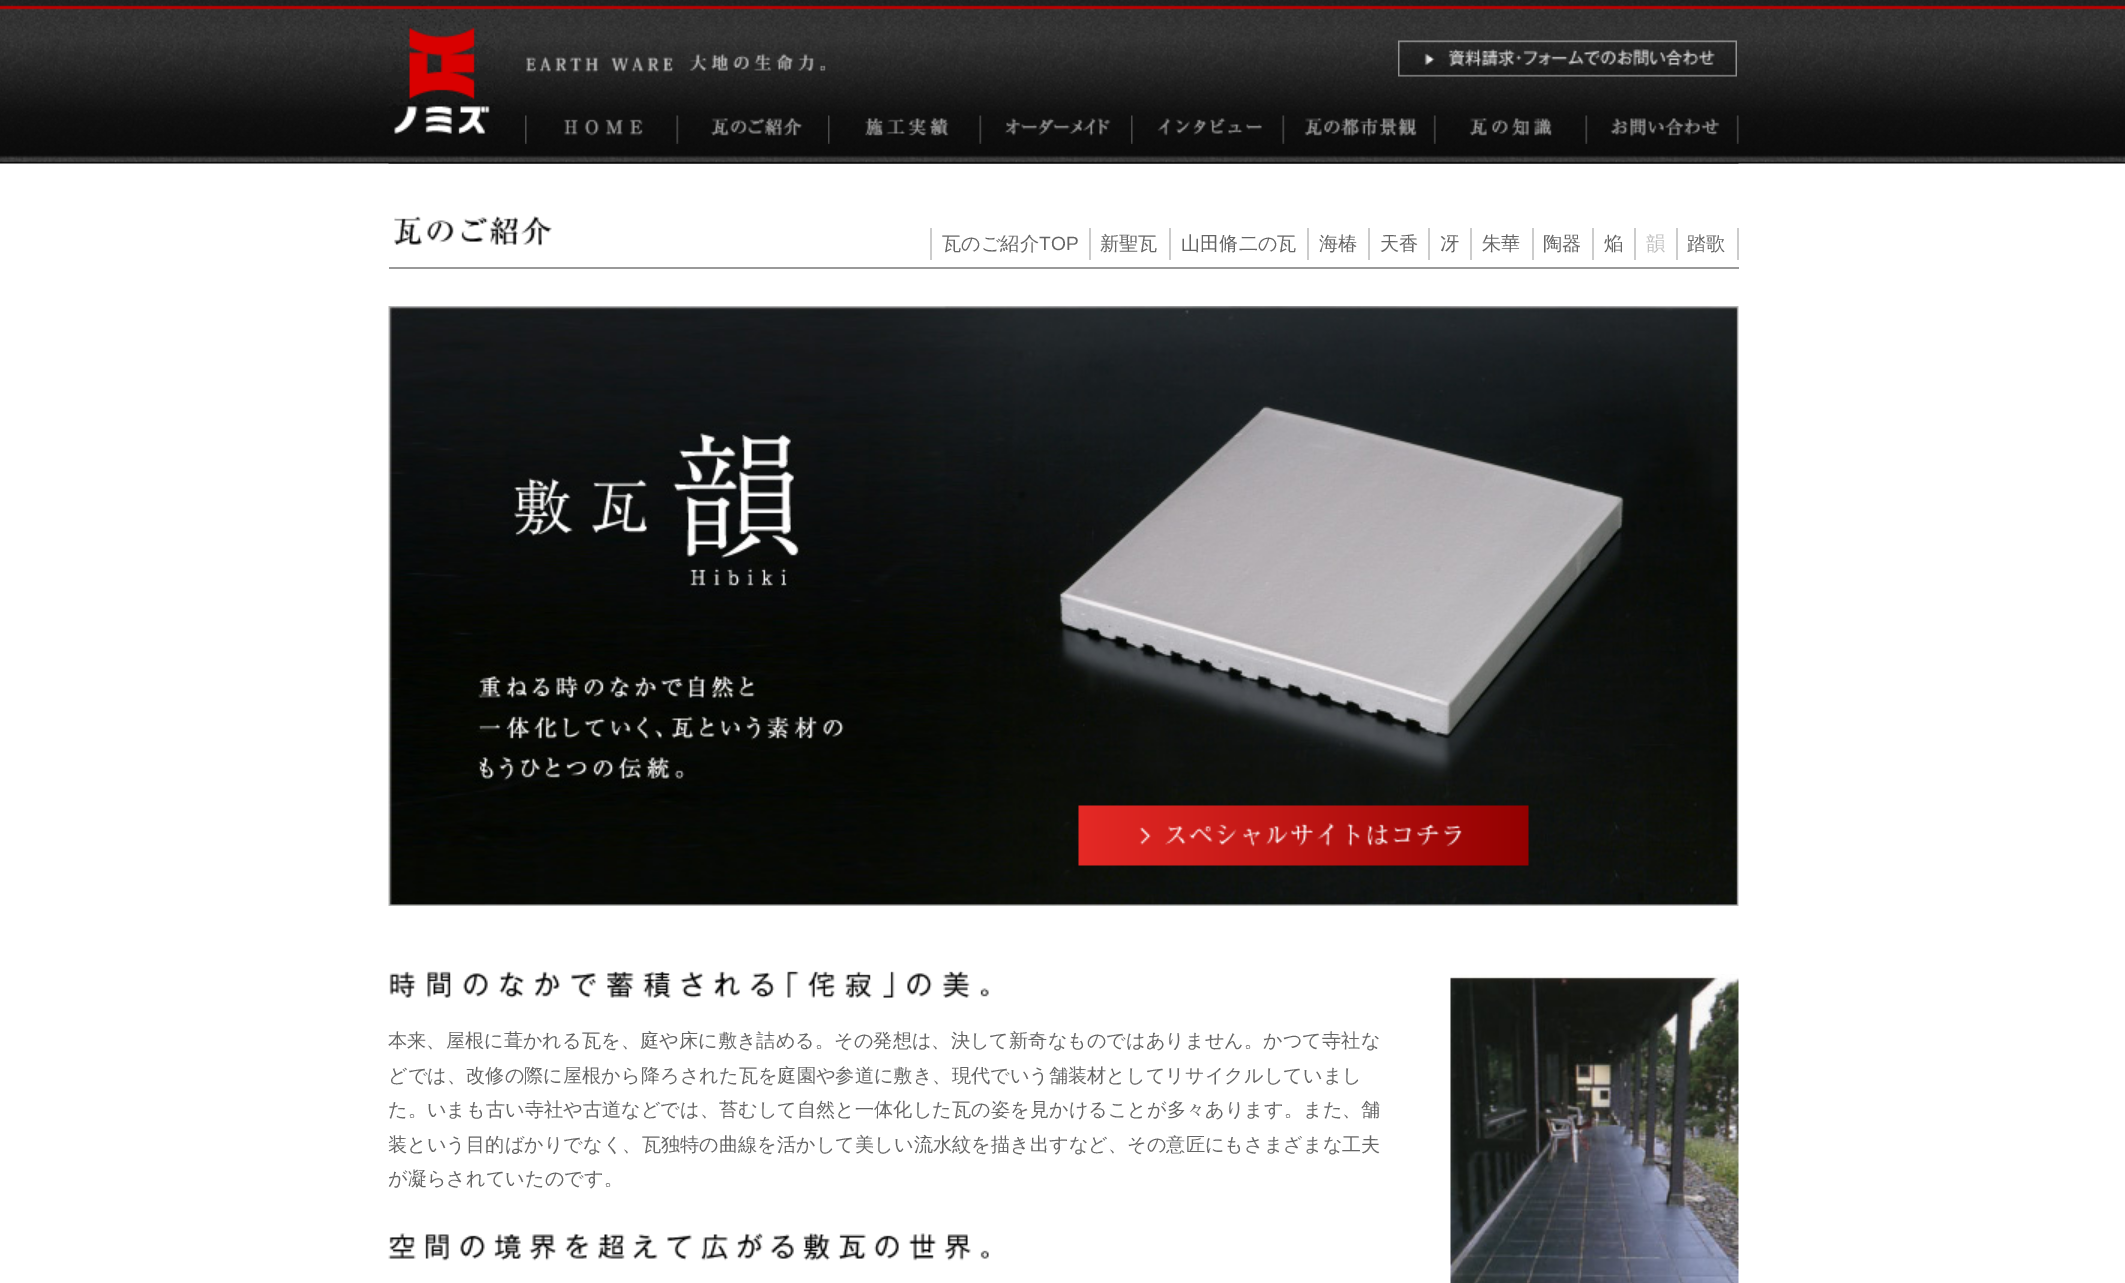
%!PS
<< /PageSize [2125 1283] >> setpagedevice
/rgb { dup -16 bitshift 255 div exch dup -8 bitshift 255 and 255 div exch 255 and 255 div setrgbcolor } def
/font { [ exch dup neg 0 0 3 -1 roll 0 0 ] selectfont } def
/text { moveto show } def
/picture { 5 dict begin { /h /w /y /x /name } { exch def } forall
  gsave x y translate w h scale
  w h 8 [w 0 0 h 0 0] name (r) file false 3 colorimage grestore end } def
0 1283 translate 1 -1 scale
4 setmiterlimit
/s1 { /WenQuanYiZenHei-Medium 19.2 font 16#666666 rgb } def
/s2 { /LiberationSans-Regular 19.2 font 16#666666 rgb } def
/s3 { /WenQuanYiZenHei-Medium 19.2 font 16#BEBEBE rgb } def
16#FFFFFF rgb
0 0 2125 1283 rectfill
(pic1.raw) 0 0 2125 164 picture
(pic2.raw) 388 3 1351 161 picture
(pic3.raw) 388 0 107 134 picture
(pic4.raw) 526 52 300 21 picture
(pic5.raw) 1398 40 339 37 picture
(pic6.raw) 525 115 118 29 picture
(pic7.raw) 676 115 127 29 picture
(pic8.raw) 828 115 121 29 picture
(pic9.raw) 979 115 132 29 picture
(pic10.raw) 1131 115 131 29 picture
(pic11.raw) 1282 115 135 29 picture
(pic12.raw) 1433 115 119 29 picture
(pic13.raw) 1585 115 154 29 picture
16#999999 rgb
389 267 1350 2 rectfill
(pic14.raw) 394 216 158 31 picture
16#CCCCCC rgb
1737 228 2 32 rectfill
930 228 2 32 rectfill
s1
(瓦のご紹介) 942 250 text
s2
(TOP) 1039 250 text
16#CCCCCC rgb
1089 228 2 32 rectfill
s1
(新聖瓦) 1100 250 text
16#CCCCCC rgb
1169 228 2 32 rectfill
s1
(山田脩二の瓦) 1181 250 text
16#CCCCCC rgb
1307 228 2 32 rectfill
s1
(海椿) 1319 250 text
16#CCCCCC rgb
1368 228 2 32 rectfill
s1
(天香) 1380 250 text
16#CCCCCC rgb
1428 228 2 32 rectfill
s1
(冴) 1440 250 text
16#CCCCCC rgb
1470 228 2 32 rectfill
s1
(朱華) 1482 250 text
16#CCCCCC rgb
1532 228 2 32 rectfill
s1
(陶器) 1543 250 text
16#CCCCCC rgb
1592 228 2 32 rectfill
s1
(焔) 1604 250 text
16#CCCCCC rgb
1634 228 2 32 rectfill
s3
(韻) 1646 250 text
16#CCCCCC rgb
1676 228 2 32 rectfill
s1
(踏歌) 1687 250 text
(pic15.raw) 388 306 1351 600 picture
(pic16.raw) 1078 805 451 61 picture
(pic17.raw) 389 970 600 28 picture
(本来、屋根に葺かれる瓦を、庭や床に敷き詰める。その発想は、決して新奇なものではありません。かつて寺社な) 388 1047 text
(どでは、改修の際に屋根から降ろされた瓦を庭園や参道に敷き、現代でいう舗装材としてリサイクルしていまし) 388 1082 text
(た。いまも古い寺社や古道などでは、苔むして自然と一体化した瓦の姿を見かけることが多々あります。また、舗) 388 1116 text
(装という目的ばかりでなく、瓦独特の曲線を活かして美しい流水紋を描き出すなど、その意匠にもさまざまな工夫) 388 1151 text
(が凝らされていたのです。) 388 1185 text
(pic18.raw) 388 1233 601 28 picture
(pic19.raw) 1450 974 289 309 picture
showpage
